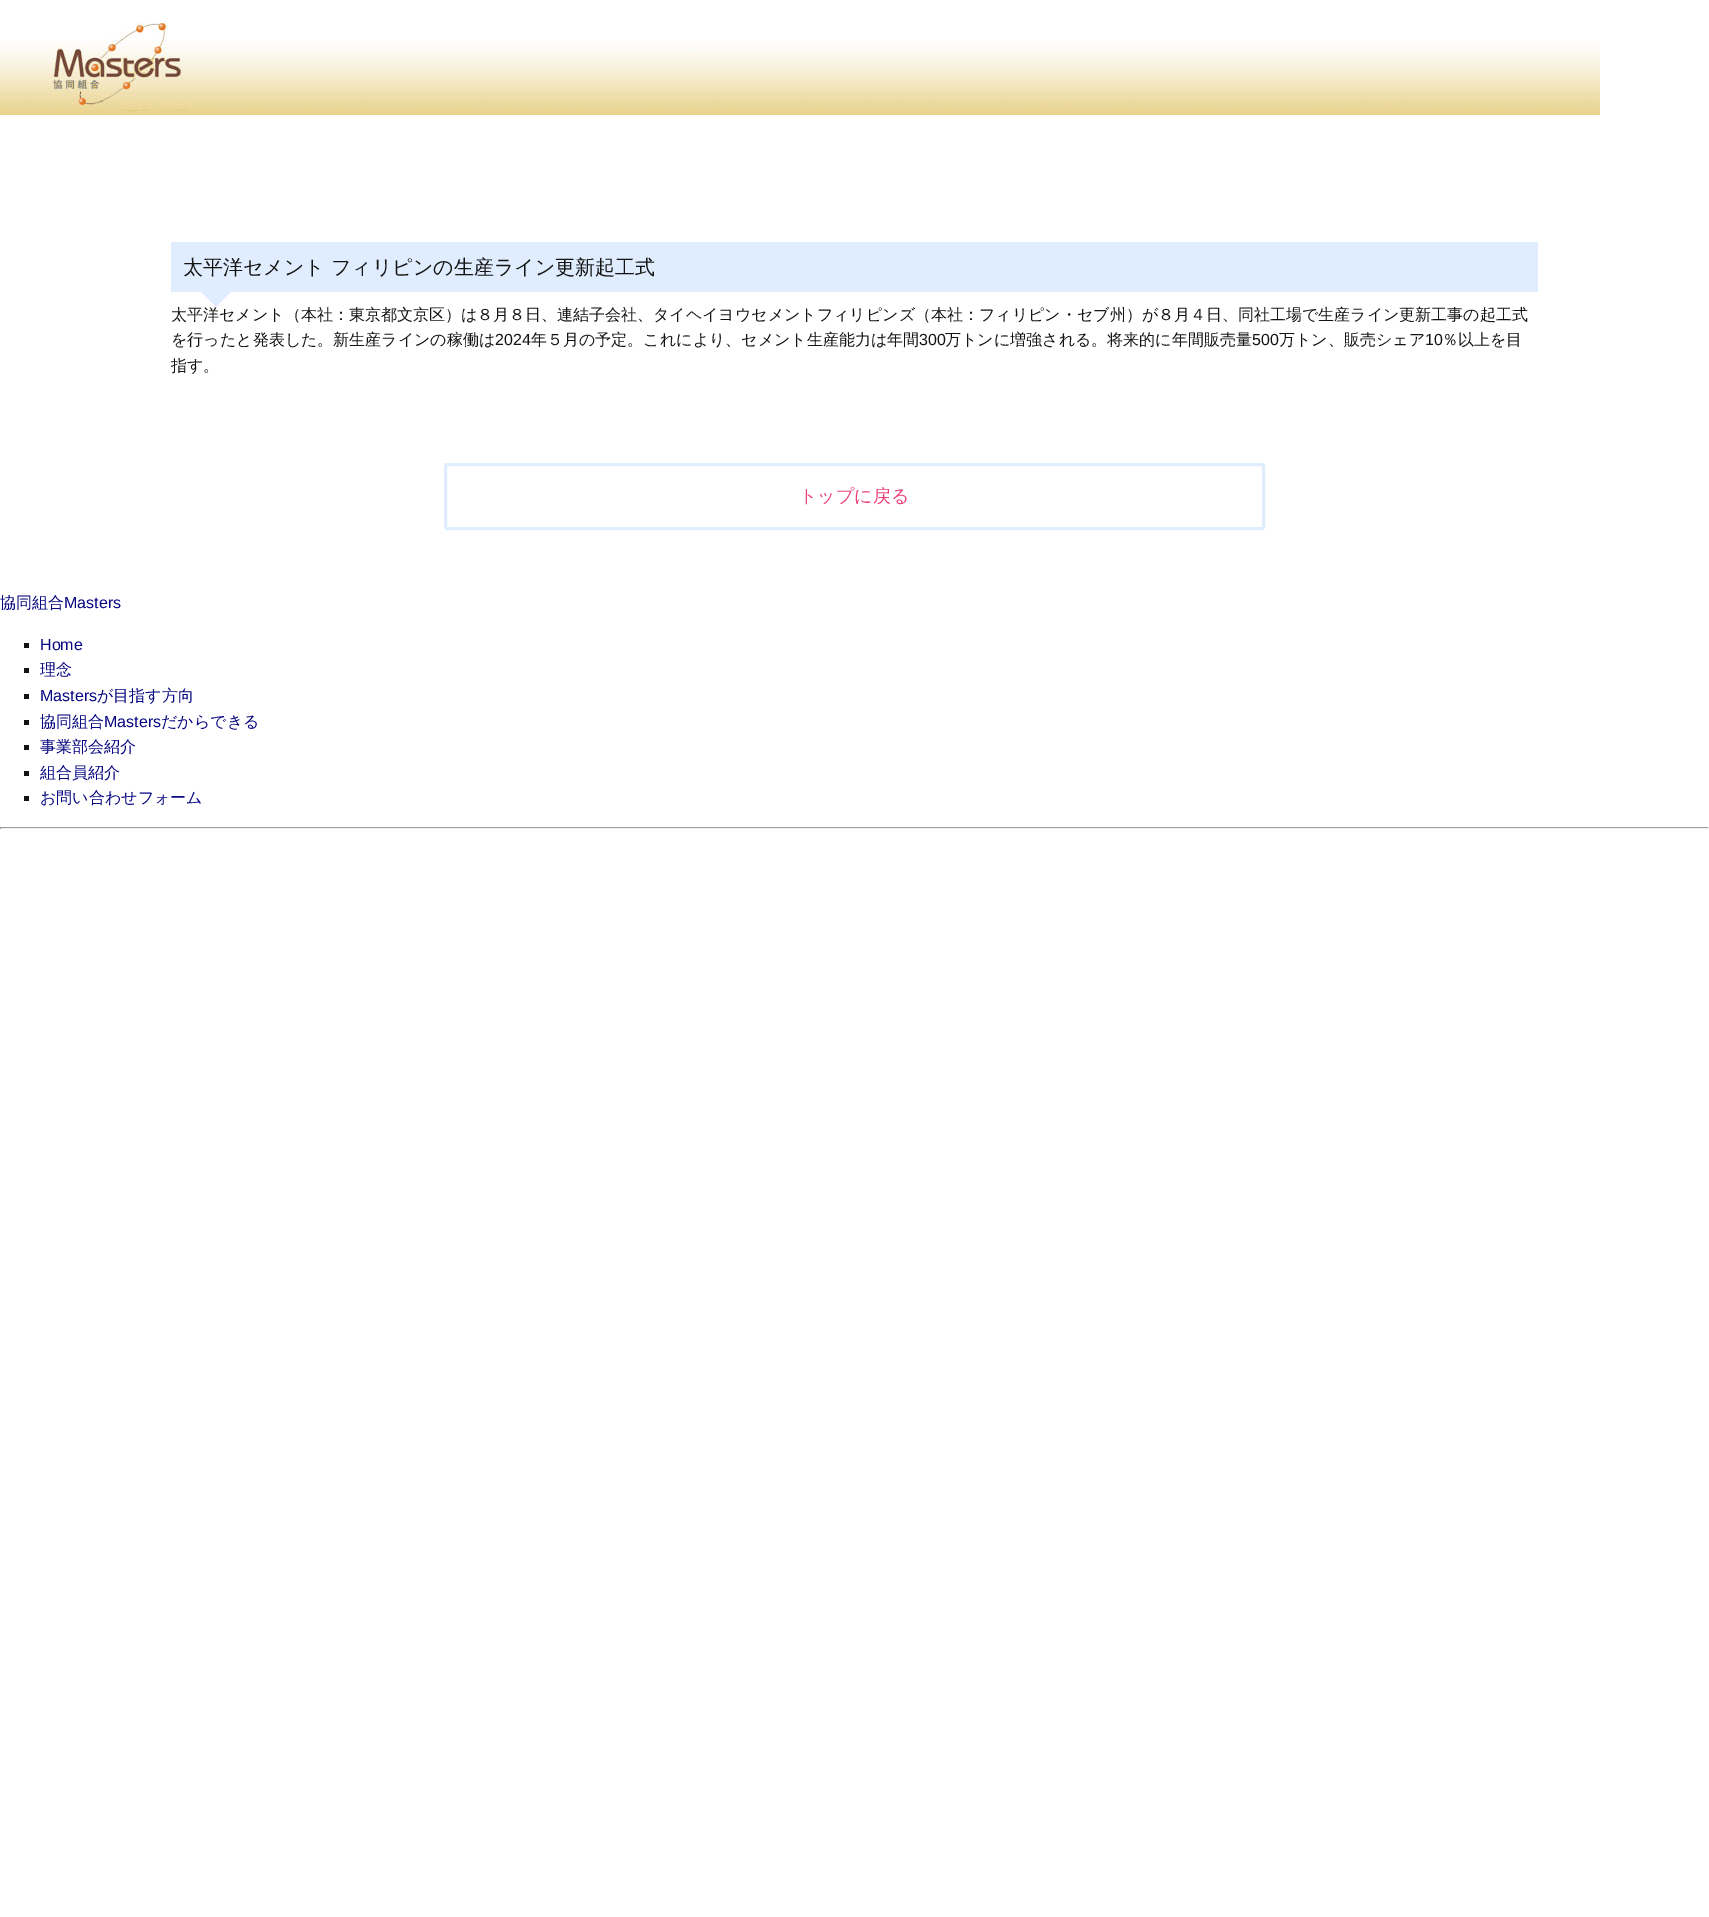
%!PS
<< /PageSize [1709 1917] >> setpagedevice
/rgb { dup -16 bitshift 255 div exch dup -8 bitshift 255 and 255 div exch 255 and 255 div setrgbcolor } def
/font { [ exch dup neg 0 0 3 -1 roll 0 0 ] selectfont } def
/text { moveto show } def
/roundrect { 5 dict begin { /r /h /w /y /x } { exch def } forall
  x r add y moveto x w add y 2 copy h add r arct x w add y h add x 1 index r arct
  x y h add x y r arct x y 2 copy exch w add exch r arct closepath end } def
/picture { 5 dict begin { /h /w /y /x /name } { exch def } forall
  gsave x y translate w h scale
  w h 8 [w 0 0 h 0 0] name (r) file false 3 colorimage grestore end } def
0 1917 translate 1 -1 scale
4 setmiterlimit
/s1 { /WenQuanYiZenHei-Medium 20 font 16#141412 rgb } def
/s2 { /WenQuanYiZenHei-Medium 16 font 16#141412 rgb } def
/s3 { /LiberationSans-Regular 16 font 16#141412 rgb } def
/s4 { /WenQuanYiZenHei-Medium 18 font 16#EC407A rgb } def
/s5 { /WenQuanYiZenHei-Medium 16 font 16#070781 rgb } def
/s6 { /LiberationSans-Regular 16 font 16#070781 rgb } def
16#FFFFFF rgb
0 0 1709 1917 rectfill
(pic1.raw) 0 23 1600 92 picture
16#E0EDFF rgb
171 242 1367 50 rectfill
s1
(太平洋セメント フィリピンの生産ライン更新起工式) 183 274 text
s2
(太平洋セメント（本社：東京都文京区）は８月８日、連結子会社、タイヘイヨウセメントフィリピンズ（本社：フィリピン・セブ州）が８月４日、同社工場で生産ライン更新工事の起工式) 171 320 text
16#E0EDFF rgb
201 292 moveto 231 292 lineto 216 307 lineto closepath fill
s2
(を行ったと発表した。新生産ラインの稼働は) 171 345 text
s3
(2024) 495 345 text
s2
(年５月の予定。これにより、セメント生産能力は年間) 531 345 text
s3
(300) 919 345 text
s2
(万トンに増強される。将来的に年間販売量) 945 345 text
s3
(500) 1252 345 text
s2
(万トン、販売シェア) 1279 345 text
s3
(10) 1425 345 text
s2
(％以上を目) 1442 345 text
(指す。) 171 371 text
16#E0EDFF rgb
3 setlinewidth
445.5 464.5 818 64 1.5 roundrect stroke
s4
(トップに戻る) 799 502 text
s5
(協同組合) 0 608 text
s6
(Masters) 64 608 text
16#141412 rgb
24 643 5 5 rectfill
s6
(Home) 40 650 text
16#141412 rgb
24 668 5 5 rectfill
s5
(理念) 40 675 text
16#141412 rgb
24 694 5 5 rectfill
s6
(Masters) 40 701 text
s5
(が目指す方向) 97 701 text
16#141412 rgb
24 720 5 5 rectfill
s5
(協同組合) 40 727 text
s6
(Masters) 104 727 text
s5
(だからできる) 161 727 text
16#141412 rgb
24 745 5 5 rectfill
s5
(事業部会紹介) 40 752 text
16#141412 rgb
24 771 5 5 rectfill
s5
(組合員紹介) 40 778 text
16#141412 rgb
24 796 5 5 rectfill
s5
(お問い合わせフォーム) 40 803 text
16#9F9F9F rgb
0 827 1709 1 rectfill
16#EEEEEE rgb
1708 827 1 2 rectfill
0 828 1709 1 rectfill
16#9F9F9F rgb
0 827 1 2 rectfill
showpage
